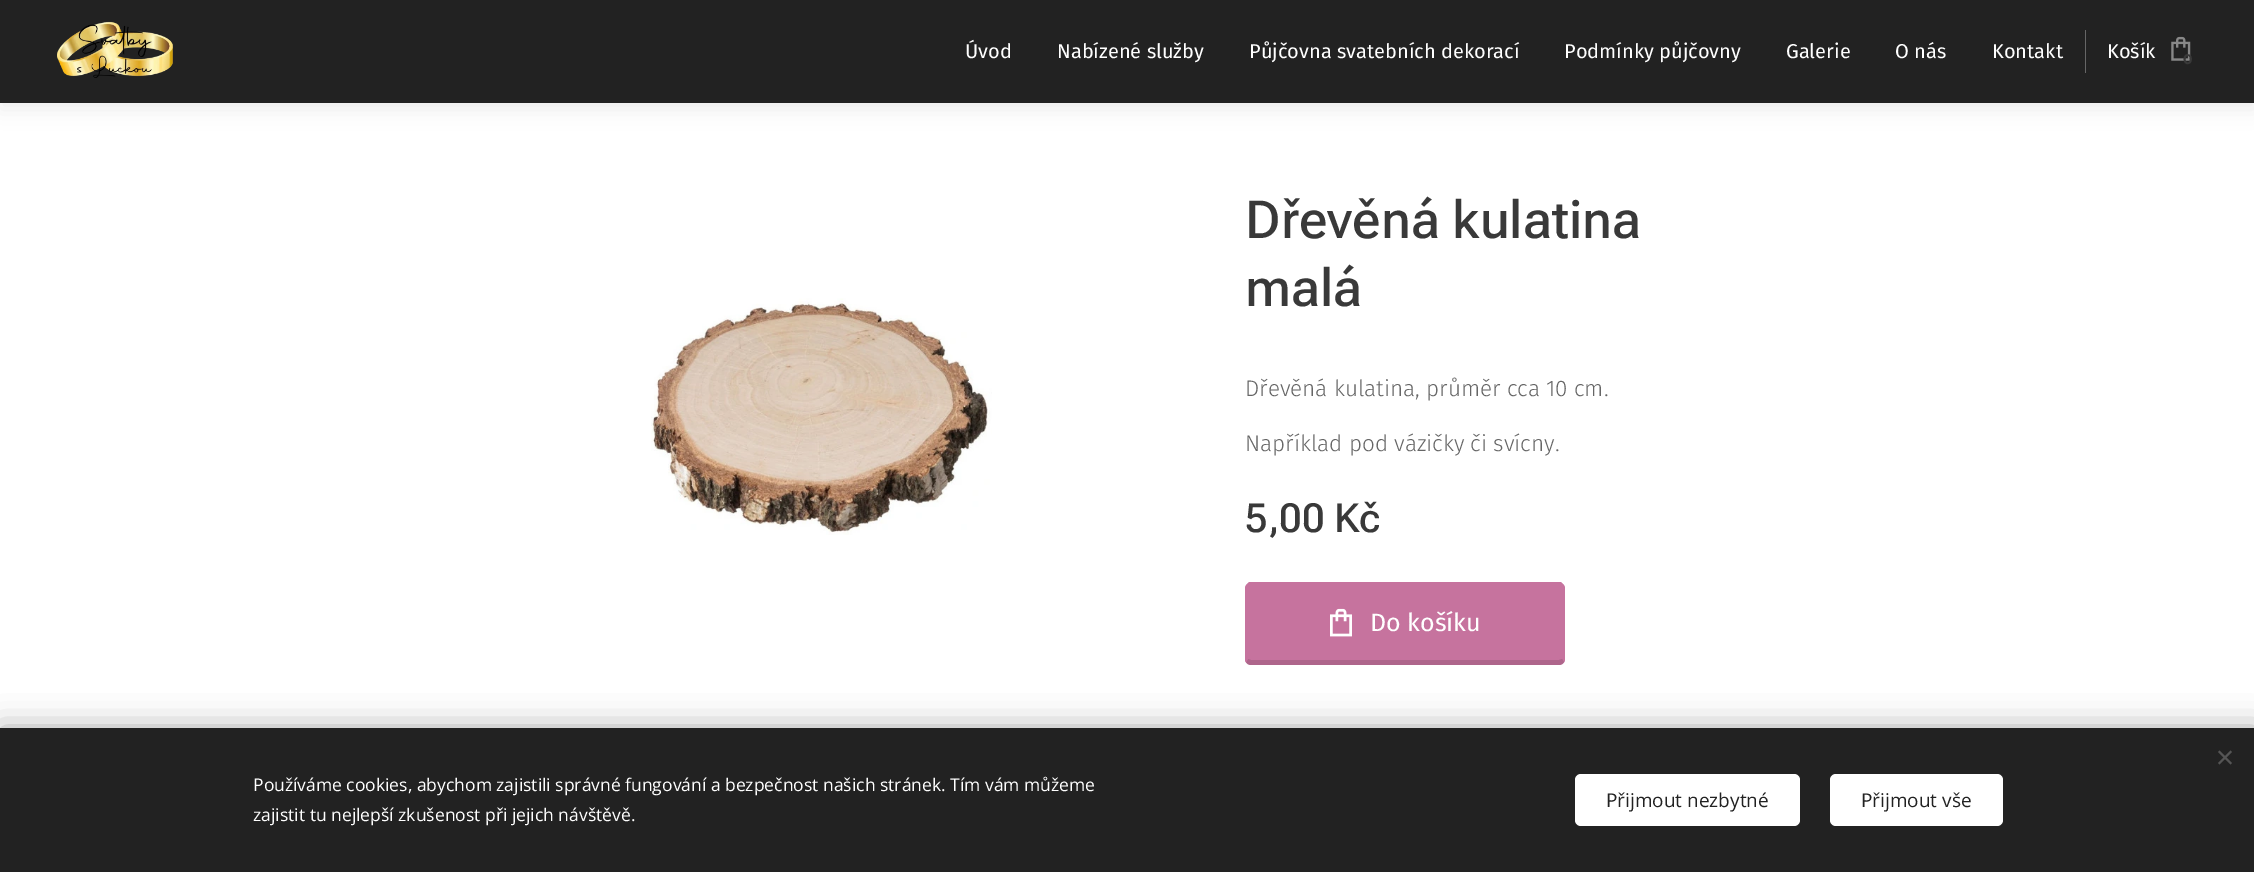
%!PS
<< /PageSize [2254 872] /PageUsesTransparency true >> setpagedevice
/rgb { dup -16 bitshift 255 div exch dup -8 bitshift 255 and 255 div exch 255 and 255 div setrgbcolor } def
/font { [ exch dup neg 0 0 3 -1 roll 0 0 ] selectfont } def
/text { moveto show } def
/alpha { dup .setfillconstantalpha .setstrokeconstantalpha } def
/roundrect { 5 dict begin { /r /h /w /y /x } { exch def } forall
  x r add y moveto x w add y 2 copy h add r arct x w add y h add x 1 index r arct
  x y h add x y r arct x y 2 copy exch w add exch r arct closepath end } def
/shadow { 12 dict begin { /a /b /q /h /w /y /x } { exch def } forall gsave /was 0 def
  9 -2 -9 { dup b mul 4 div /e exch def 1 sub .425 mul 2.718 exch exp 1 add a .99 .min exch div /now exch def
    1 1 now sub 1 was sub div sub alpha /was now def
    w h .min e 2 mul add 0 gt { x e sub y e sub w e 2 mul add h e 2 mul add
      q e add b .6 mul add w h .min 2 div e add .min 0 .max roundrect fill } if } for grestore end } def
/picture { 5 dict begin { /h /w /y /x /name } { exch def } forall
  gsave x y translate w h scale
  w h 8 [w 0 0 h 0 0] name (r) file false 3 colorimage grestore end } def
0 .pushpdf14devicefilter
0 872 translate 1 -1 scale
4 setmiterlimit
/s1 { /FiraSans-Regular 20 font 16#FFFFFF rgb } def
/s2 { /Montserrat-Bold 14 font 16#393939 rgb } def
/s3 { /RobotoFlex-Medium 52.5 font 16#393939 rgb } def
/s4 { /FiraSans-Light 22.5 font 16#666666 rgb } def
/s5 { /RobotoFlex-Medium 40 font 16#393939 rgb } def
/s6 { /FiraSans-Regular 25 font 16#FFFFFF rgb } def
/s7 { /OpenSans-Regular 17.5 font 16#FFFFFF rgb } def
/s8 { /OpenSans-Regular 19 font 16#222222 rgb } def
16#FFFFFF rgb
0 0 2254 872 rectfill
16#222222 rgb
0 0 2254 103 rectfill
gsave
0 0 moveto 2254 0 lineto 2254 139 lineto 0 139 lineto closepath 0 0 moveto 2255 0 lineto 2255 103 lineto 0 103 lineto closepath eoclip newpath
16#000000 rgb
0 6 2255 103 0 9.5 0.07 shadow
grestore
(pic1.raw) 57 21 116 57 picture
s1
(Úvod) 965 58 text
(Nabízené služby) 1057 58 text
(Půjčovna svatebních dekorací) 1249 58 text
(Podmínky půjčovny) 1564 58 text
(Galerie) 1786 58 text
(O nás) 1895 58 text
(Kontakt) 1992 58 text
16#666666 rgb
2085 30 1 43 rectfill
s1
(Košík) 2107 58 text
(pic2.raw) 2171 36 20 25 picture
s2
(0) 2183 64 text
s3
(Dřevěná kulatina) 1245 238 text
(malá) 1245 306 text
(pic3.raw) 651 298 341 237 picture
s4
(Dřevěná kulatina, průměr cca 10 cm.) 1245 396 text
(Například pod vázičky či svícny.) 1245 451 text
s5
(5,00 Kč) 1245 532 text
16#C6739E rgb
1245 583 320 82 6 roundrect fill
1251 585 moveto 1249 586 lineto 1247 584 lineto 1249 582 lineto 1561 582 lineto 1563 584 lineto 1561 586 lineto 1559 585 lineto closepath fill
1565 659 moveto 1565 589 lineto 1565 587 1564 585 1563 584 curveto 1561 586 lineto 1562 589 lineto 1562 659 lineto 1564 662 lineto closepath fill
0.12 alpha
16#000000 rgb
1251 665 moveto 1559 665 lineto 1561 665 1563 664 1564 662 curveto 1562 659 lineto 1559 660 lineto 1251 660 lineto 1248 659 lineto 1246 662 lineto 1247 664 1249 665 1251 665 curveto closepath fill
1 alpha
16#C6739E rgb
1245 589 moveto 1245 659 lineto 1245 660 1245 661 1246 662 curveto 1248 659 lineto 1248 589 lineto 1249 586 lineto 1247 584 lineto 1246 585 1245 587 1245 589 curveto closepath fill
(pic4.raw) 1330 608 22 29 picture
s6
(Do košíku) 1370 631 text
16#000000 rgb
0 728 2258 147 0 15.5 0.33 shadow
16#222222 rgb
0 728 2254 144 rectfill
16#555555 rgb
2218 763 moveto 2230.5 750.5 lineto 2232 752 lineto 2219.5 764.5 lineto closepath fill
2219.5 750.5 moveto 2232 763 lineto 2230.5 764.5 lineto 2218 752 lineto closepath fill
s7
(Používáme cookies, abychom zajistili správné fungování a bezpečnost našich stránek. Tím vám můžeme) 253 791 text
(zajistit tu nejlepší zkušenost při jejich návštěvě.) 253 821 text
1575 774 225 52 6 roundrect fill
s8
(Přijmout nezbytné) 1606 807 text
16#FFFFFF rgb
1830 774 173 52 6 roundrect fill
s8
(Přijmout vše) 1861 807 text
.poppdf14devicefilter showpage
